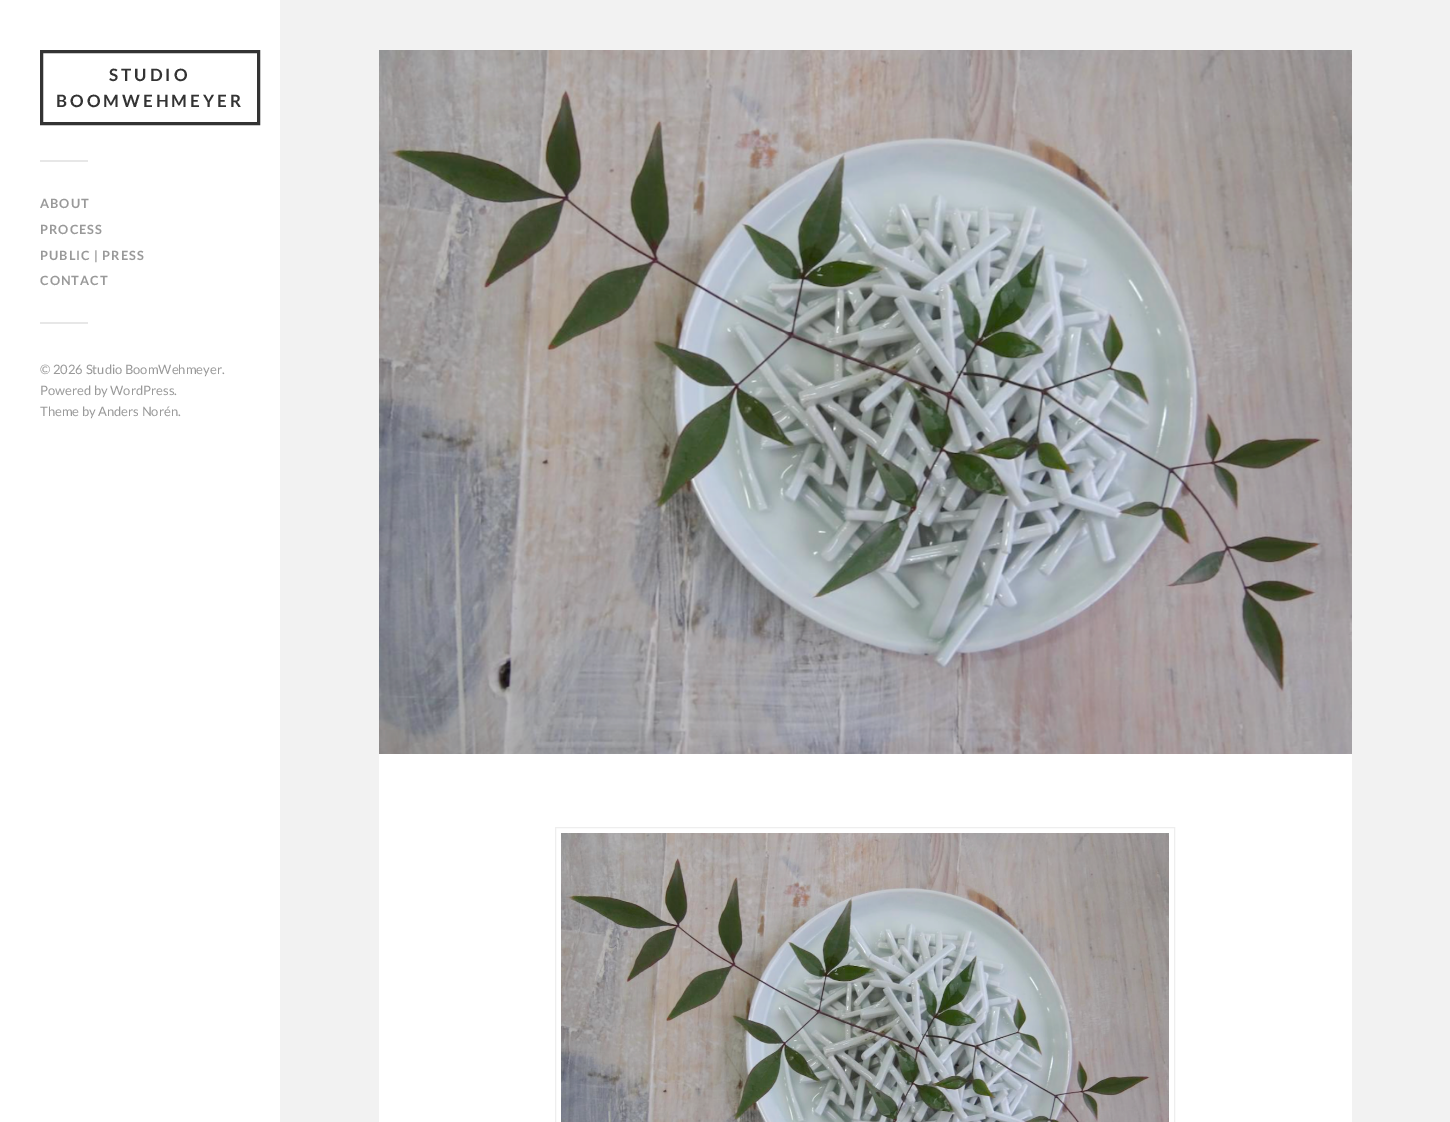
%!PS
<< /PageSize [1450 1122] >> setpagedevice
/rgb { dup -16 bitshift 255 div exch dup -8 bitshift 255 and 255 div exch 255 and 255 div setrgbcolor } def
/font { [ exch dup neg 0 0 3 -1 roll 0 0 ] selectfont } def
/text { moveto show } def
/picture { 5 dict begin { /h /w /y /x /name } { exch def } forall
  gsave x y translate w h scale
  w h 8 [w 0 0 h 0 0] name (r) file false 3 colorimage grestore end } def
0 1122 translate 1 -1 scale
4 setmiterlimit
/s1 { /Lato-Regular 13 font 16#999999 rgb } def
16#F2F2F2 rgb
0 0 1450 1122 rectfill
16#FFFFFF rgb
0 0 280 1122 rectfill
16#333333 rgb
3 setlinewidth
41.5 51.5 217 72 rectstroke
/Lato-Bold 17 font
109 81 moveto 3 0 (STUDIO) ashow
56 107 moveto 3 0 (BOOMWEHMEYER) ashow
16#E7E7E7 rgb
40 160 48 2 rectfill
/Lato-Bold 12.75 font
16#999999 rgb
40 208 moveto 1 0 (ABOUT) ashow
40 234 moveto 1 0 (PROCESS) ashow
40 260 moveto 1 0 (PUBLIC | PRESS) ashow
40 285 moveto 1 0 (CONTACT) ashow
16#E7E7E7 rgb
40 322 48 2 rectfill
s1
(© 2026 Studio BoomWehmeyer.) 40 374 text
(Powered by WordPress.) 40 395 text
(Theme by Anders Norén.) 40 416 text
16#FFFFFF rgb
379 754 973 368 rectfill
(pic1.raw) 379 50 973 704 picture
16#EEEEEE rgb
1 setlinewidth
555.5 827.5 619 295 rectstroke
(pic2.raw) 561 833 608 289 picture
showpage
